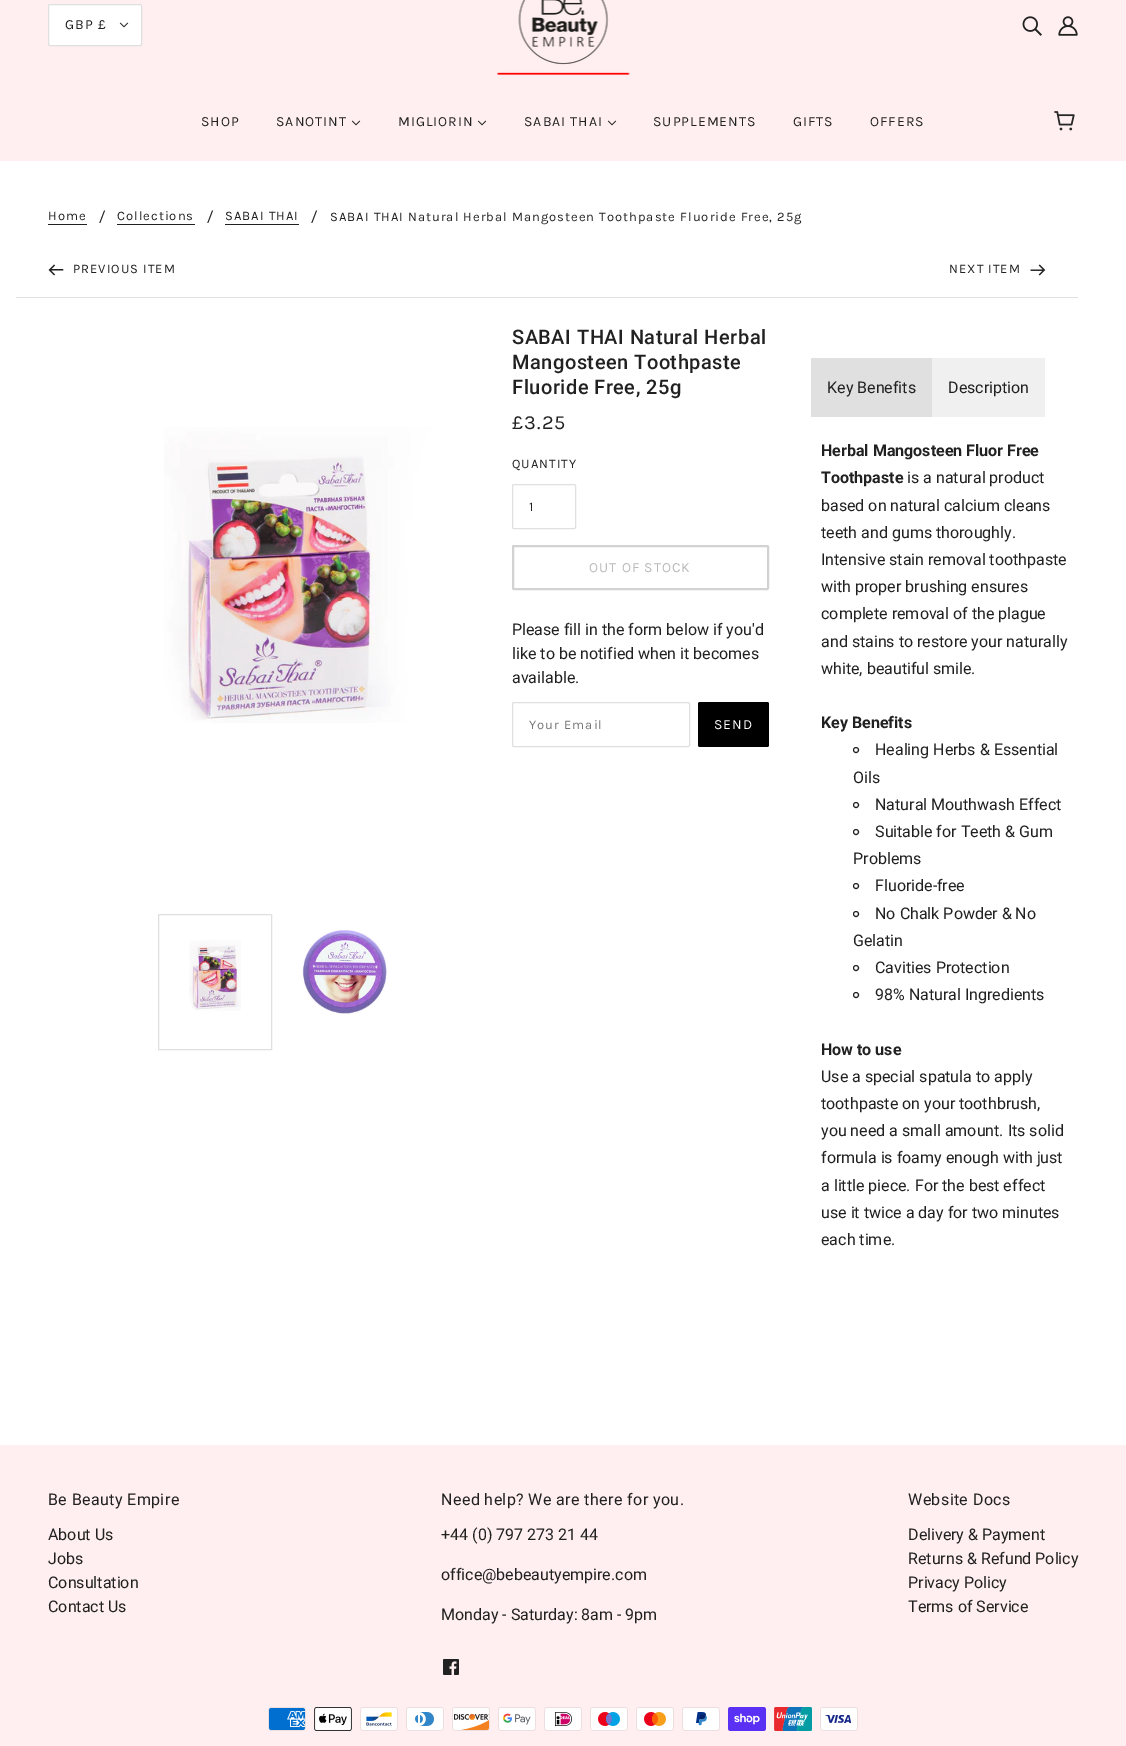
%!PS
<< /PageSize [1126 1746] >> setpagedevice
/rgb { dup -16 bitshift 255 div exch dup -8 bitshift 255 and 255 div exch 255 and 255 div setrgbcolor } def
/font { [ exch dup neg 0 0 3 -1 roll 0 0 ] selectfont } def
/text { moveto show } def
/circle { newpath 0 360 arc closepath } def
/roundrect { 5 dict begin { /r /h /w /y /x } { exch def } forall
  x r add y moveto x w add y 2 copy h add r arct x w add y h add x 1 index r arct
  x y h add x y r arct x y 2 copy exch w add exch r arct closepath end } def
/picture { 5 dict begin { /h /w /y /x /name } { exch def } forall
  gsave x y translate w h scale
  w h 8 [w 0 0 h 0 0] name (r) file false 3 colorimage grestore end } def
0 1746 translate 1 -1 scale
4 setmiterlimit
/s1 { /Roboto-Regular 16 font 16#212121 rgb } def
/s2 { /Roboto-Bold 16 font 16#212121 rgb } def
16#FFFFFF rgb
0 0 1126 1746 rectfill
16#FFEFF0 rgb
0 0 1126 161 rectfill
16#FFFFFF rgb
48.5 4.5 93 41 1.5 roundrect gsave fill grestore
16#E0E0E0 rgb
stroke
/Karla-Regular 14 font
16#212121 rgb
65 29 moveto 1 0 (GBP £) ashow
(pic1.raw) 119 22 10 6 picture
(pic2.raw) 497 0 133 75 picture
(pic3.raw) 1022 16 20 20 picture
(pic4.raw) 1058 16 20 20 picture
201 126 moveto 1 0 (SHOP) ashow
276 126 moveto 1 0 (SANOTINT) ashow
(pic5.raw) 351 120 10 6 picture
398 126 moveto 1 0 (MIGLIORIN) ashow
(pic5.raw) 477 120 10 6 picture
524 126 moveto 1 0 (SABAI THAI) ashow
(pic5.raw) 607 120 10 6 picture
653 126 moveto 1 0 (SUPPLEMENTS) ashow
793 126 moveto 1 0 (GIFTS) ashow
870 126 moveto 1 0 (OFFERS) ashow
(pic6.raw) 1054 111 21 20 picture
/Karla-Regular 13 font
48 220 moveto 1 0 (Home) ashow
48 224 39 1 rectfill
s1
(/) 99 222 text
/Karla-Regular 13 font
117 220 moveto 1 0 (Collections) ashow
117 224 78 1 rectfill
s1
(/) 207 222 text
/Karla-Regular 13 font
225 220 moveto 1 0 (SABAI THAI) ashow
225 224 74 1 rectfill
s1
(/) 311 222 text
/Karla-Regular 13 font
330 221 moveto 1 0 (SABAI THAI Natural Herbal Mangosteen Toothpaste Fluoride Free, 25g) ashow
16#E0E0E0 rgb
16 297 1062 1 rectfill
(pic7.raw) 48 264 16 12 picture
16#212121 rgb
73 273 moveto 1 0 (PREVIOUS ITEM) ashow
949 273 moveto 1 0 (NEXT ITEM) ashow
(pic8.raw) 1030 264 16 12 picture
/Roboto-Medium 20 font
512 344 moveto 0.5 0 (SABAI THAI Natural Herbal) ashow
512 369 moveto 0.5 0 (Mangosteen Toothpaste) ashow
512 394 moveto 0.5 0 (Fluoride Free, 25g) ashow
/Karla-Regular 20 font
512 429 moveto 1 0 (£3.25) ashow
(pic9.raw) 164 427 348 296 picture
16#E0E0E0 rgb
158.5 914.5 113 135 rectstroke
(pic10.raw) 189 940 52 71 picture
(pic11.raw) 302 930 87 85 picture
/Karla-Regular 13 font
16#212121 rgb
512 468 moveto 1 0 (QUANTITY) ashow
16#E0E0E0 rgb
512.5 484.5 63 44 1.5 roundrect stroke
16#212121 rgb
529 511 moveto 1 0 (1) ashow
16#D2D2D2 rgb
2 setlinewidth
513 546 255 43 1 roundrect stroke
/Karla-Regular 14 font
16#B9B9B9 rgb
589 572 moveto 1 0 (OUT OF STOCK) ashow
s1
(Please fill in the form below if you'd) 512 635 text
(like to be notified when it becomes) 512 659 text
(available.) 512 683 text
16#E0E0E0 rgb
1 setlinewidth
512.5 702.5 177 44 1.5 roundrect stroke
/Karla-Regular 13 font
16#757575 rgb
529 729 moveto 1 0 (Your Email) ashow
16#000000 rgb
698 702 71 45 2 roundrect fill
/Karla-Regular 14 font
16#FFFFFF rgb
714 729 moveto 1 0 (SEND) ashow
16#E0E0E0 rgb
811 358 121 59 rectfill
s1
(Key Benefits) 827 393 text
16#F0F0F0 rgb
932 358 113 59 rectfill
s1
(Description) 948 393 text
s2
(Herbal Mangosteen Fluor Free) 821 456 text
(Toothpaste) 821 483 text
s1
(is a natural product) 907 483 text
(based on natural calcium cleans) 821 511 text
(teeth and gums thoroughly.) 821 538 text
(Intensive stain removal toothpaste) 821 565 text
(with proper brushing ensures) 821 592 text
(complete removal of the plague) 821 619 text
(and stains to restore your naturally) 821 647 text
(white, beautiful smile.) 821 674 text
s2
(Key Benefits) 821 728 text
856 750 2.5 circle stroke
s1
(Healing Herbs & Essential) 875 755 text
(Oils) 853 783 text
856 805 2.5 circle stroke
(Natural Mouthwash Effect) 875 810 text
856 832 2.5 circle stroke
(Suitable for Teeth & Gum) 875 837 text
(Problems) 853 864 text
856 886 2.5 circle stroke
(Fluoride-free) 875 891 text
856 914 2.5 circle stroke
(No Chalk Powder & No) 875 919 text
(Gelatin) 853 946 text
856 968 2.5 circle stroke
(Cavities Protection) 875 973 text
856 995 2.5 circle stroke
(98% Natural Ingredients) 875 1000 text
s2
(How to use) 821 1055 text
s1
(Use a special spatula to apply) 821 1082 text
(toothpaste on your toothbrush,) 821 1109 text
(you need a small amount. Its solid) 821 1136 text
(formula is foamy enough with just) 821 1163 text
(a little piece. For the best effect) 821 1191 text
(use it twice a day for two minutes) 821 1218 text
(each time.) 821 1245 text
16#FFEFF0 rgb
0 1445 1126 301 rectfill
16#212121 rgb
48 1505 moveto 0.4 0 (Be Beauty Empire) ashow
(About Us) 48 1540 text
(Jobs) 48 1564 text
(Consultation) 48 1588 text
(Contact Us) 48 1612 text
441 1505 moveto 0.4 0 (Need help? We are there for you.) ashow
(+44 \(0\) 797 273 21 44) 441 1540 text
(office@bebeautyempire.com) 441 1580 text
(Monday - Saturday: 8am - 9pm) 441 1620 text
(pic12.raw) 443 1659 16 16 picture
908 1505 moveto 0.4 0 (Website Docs) ashow
(Delivery & Payment) 908 1540 text
(Returns & Refund Policy) 908 1564 text
(Privacy Policy) 908 1588 text
(Terms of Service) 908 1612 text
(pic13.raw) 268 1707 38 24 picture
(pic14.raw) 314 1707 38 24 picture
(pic15.raw) 360 1707 38 24 picture
(pic16.raw) 406 1707 38 24 picture
(pic17.raw) 452 1707 38 24 picture
(pic18.raw) 498 1707 38 24 picture
(pic19.raw) 544 1707 38 24 picture
(pic20.raw) 590 1707 38 24 picture
(pic21.raw) 636 1707 38 24 picture
(pic22.raw) 682 1707 38 24 picture
(pic23.raw) 728 1707 38 24 picture
(pic24.raw) 774 1707 38 24 picture
(pic25.raw) 820 1707 38 24 picture
showpage
